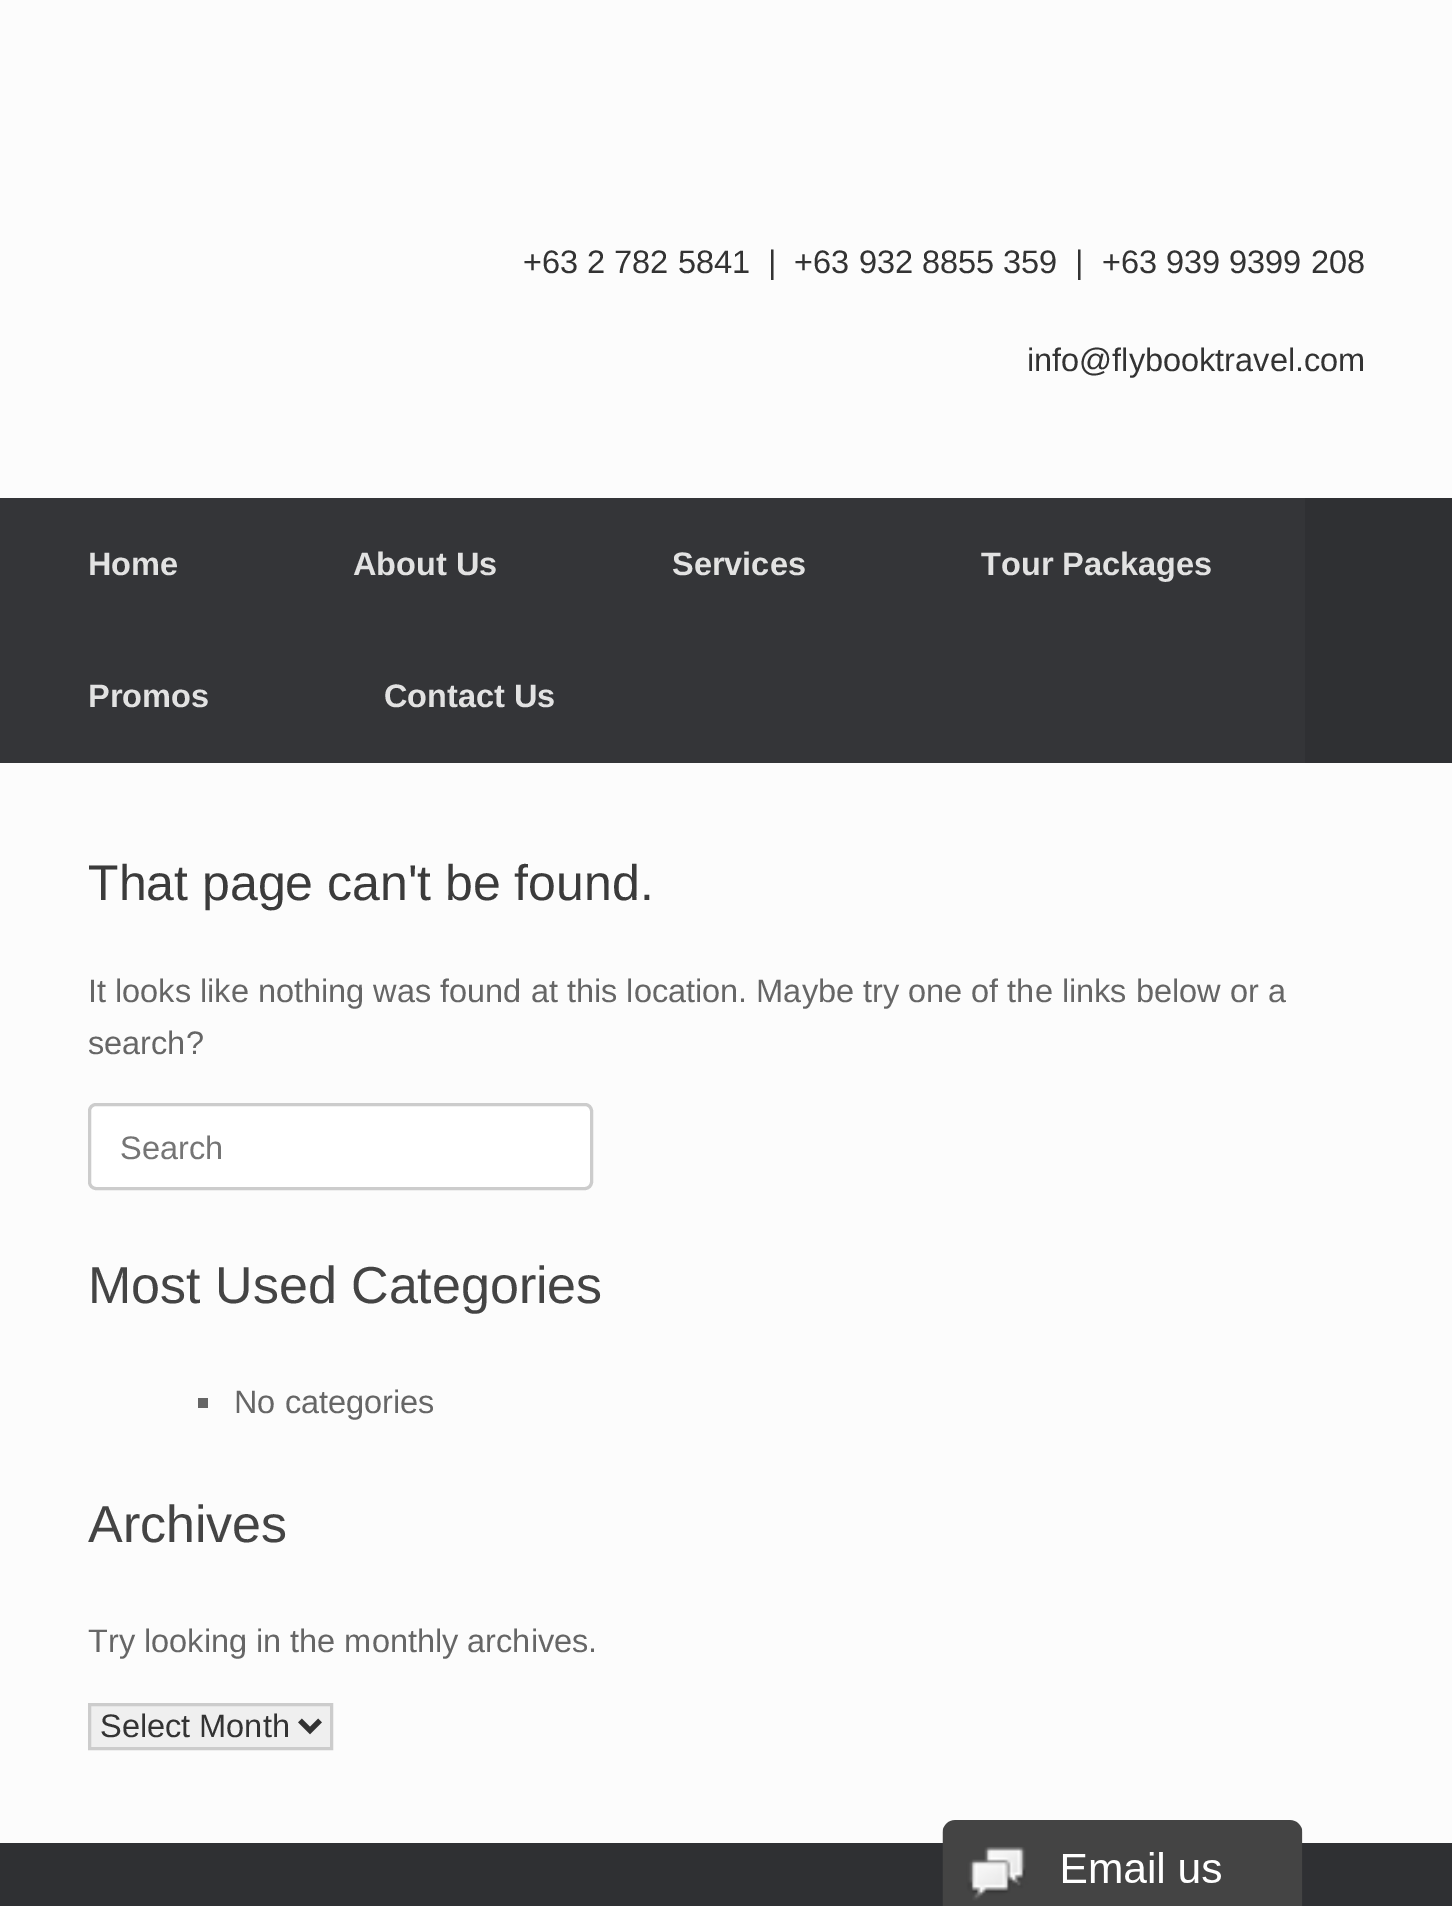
%!PS
<< /PageSize [1452 1906] >> setpagedevice
/rgb { dup -16 bitshift 255 div exch dup -8 bitshift 255 and 255 div exch 255 and 255 div setrgbcolor } def
/font { [ exch dup neg 0 0 3 -1 roll 0 0 ] selectfont } def
/text { moveto show } def
/roundrect { 5 dict begin { /r /h /w /y /x } { exch def } forall
  x r add y moveto x w add y 2 copy h add r arct x w add y h add x 1 index r arct
  x y h add x y r arct x y 2 copy exch w add exch r arct closepath end } def
/picture { 5 dict begin { /h /w /y /x /name } { exch def } forall
  gsave x y translate w h scale
  w h 8 [w 0 0 h 0 0] name (r) file false 3 colorimage grestore end } def
0 1906 translate 1 -1 scale
4 setmiterlimit
/s1 { /LiberationSans-Regular 32.5 font 16#333333 rgb } def
/s2 { /LiberationSans-Bold 32.5 font 16#E2E2E2 rgb } def
/s3 { /LiberationSans-Regular 50 font 16#3B3B3B rgb } def
/s4 { /LiberationSans-Regular 32.5 font 16#666666 rgb } def
/s5 { /LiberationSans-Regular 32.5 font 16#757575 rgb } def
/s6 { /LiberationSans-Regular 52 font 16#444444 rgb } def
16#2F3033 rgb
0 0 1452 1906 rectfill
16#FCFCFC rgb
0 0 1452 498 rectfill
s1
(+63 2 782 5841  |  +63 932 8855 359  |  +63 939 9399 208) 523 273 text
(info@flybooktravel.com) 1027 371 text
16#343538 rgb
0 498 1305 265 rectfill
s2
(Home) 88 575 text
(About Us) 353 575 text
(Services) 672 575 text
(Tour Packages) 981 575 text
(Promos) 88 707 text
(Contact Us) 384 707 text
16#FCFCFC rgb
0 763 1452 1080 rectfill
s3
(That page can't be found.) 88 900 text
s4
(It looks like nothing was found at this location. Maybe try one of the links below or a) 88 1002 text
(search?) 88 1054 text
16#FFFFFF rgb
89.5 1104.5 502 84 6.5 roundrect gsave fill grestore
16#CCCCCC rgb
3 setlinewidth
stroke
s5
(Search) 120 1159 text
s6
(Most Used Categories) 88 1303 text
16#666666 rgb
198 1398 10 10 rectfill
s4
(No categories) 234 1413 text
s6
(Archives) 88 1542 text
s4
(Try looking in the monthly archives.) 88 1652 text
16#EFEFEF rgb
89.5 1704.5 moveto 331.5 1704.5 lineto 331.5 1748.5 lineto 89.5 1748.5 lineto closepath gsave fill grestore
16#CCCCCC rgb
stroke
16#333333 rgb
5 setlinewidth
300 1720.5 moveto 310 1730.5 lineto 320 1720.5 lineto stroke
(Select Month) 100 1737 text
(pic1.raw) 942 1820 361 86 picture
showpage
